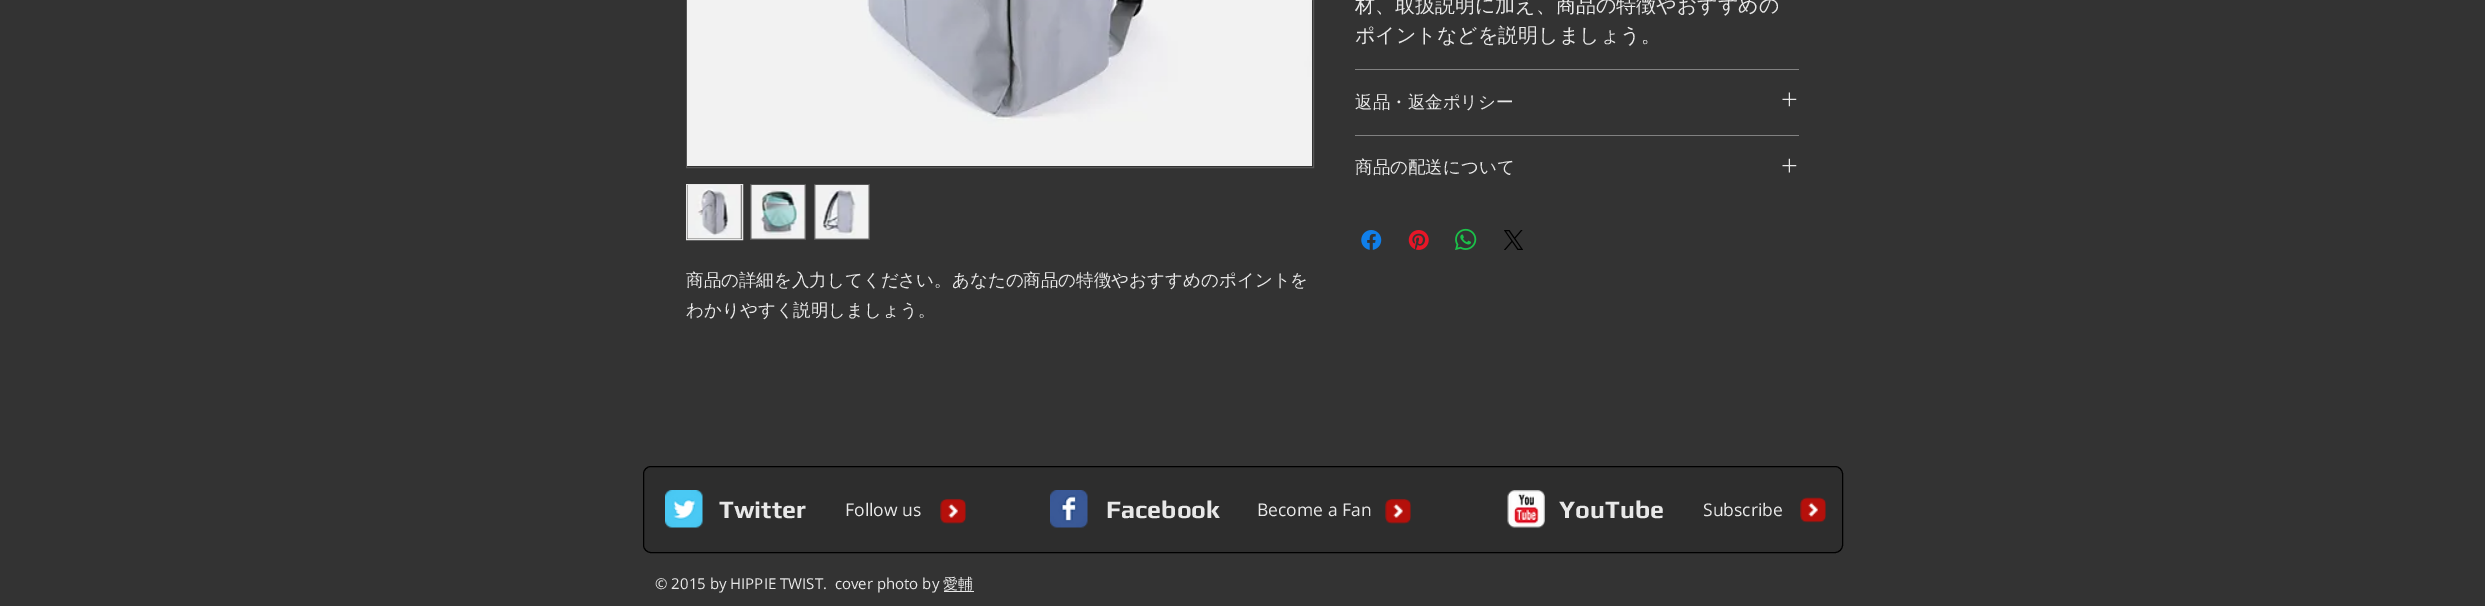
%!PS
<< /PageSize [2485 606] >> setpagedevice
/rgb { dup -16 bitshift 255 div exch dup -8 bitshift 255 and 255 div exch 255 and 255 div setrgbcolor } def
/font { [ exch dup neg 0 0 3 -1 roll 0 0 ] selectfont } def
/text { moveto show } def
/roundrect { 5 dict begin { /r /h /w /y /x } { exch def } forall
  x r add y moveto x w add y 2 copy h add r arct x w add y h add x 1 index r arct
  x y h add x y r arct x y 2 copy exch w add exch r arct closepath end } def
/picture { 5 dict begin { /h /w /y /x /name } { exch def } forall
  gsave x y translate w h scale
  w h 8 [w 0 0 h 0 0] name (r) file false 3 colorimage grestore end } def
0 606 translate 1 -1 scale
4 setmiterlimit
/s1 { /WenQuanYiZenHei-Medium 20 font 16#E8E8E8 rgb } def
/s2 { /WenQuanYiZenHei-Medium 17.5 font 16#E8E8E8 rgb } def
/s3 { /Play-Bold 25 font 16#E8E8E8 rgb } def
/s4 { /OpenSans-Regular 17.5 font 16#E8E8E8 rgb } def
/s5 { /OpenSans-Regular 15 font 16#E8E8E8 rgb } def
/s6 { /WenQuanYiZenHei-Medium 15 font 16#E8E8E8 rgb } def
16#333333 rgb
0 0 2485 606 rectfill
16#818181 rgb
1355 69 444 1 rectfill
s1
(材、取扱説明に加え、商品の特徴やおすすめの) 1355 12 text
(ポイントなどを説明しましょう。) 1355 42 text
16#818181 rgb
1355 135 444 1 rectfill
s2
(返品・返金ポリシー) 1355 108 text
(pic1.raw) 1782 92 15 15 picture
(商品の配送について) 1355 173 text
(pic2.raw) 1782 158 15 15 picture
(pic3.raw) 1361 230 21 20 picture
(pic4.raw) 1408 230 21 20 picture
(pic5.raw) 1455 228 22 22 picture
(pic6.raw) 1504 230 19 20 picture
16#575757 rgb
686.5 -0.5 627 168 rectstroke
(pic7.raw) 687 0 625 166 picture
686.5 184.5 moveto 742.5 184.5 lineto 742.5 239.5 lineto 686.5 239.5 lineto closepath gsave fill grestore
16#E8E8E8 rgb
stroke
(pic8.raw) 687 185 55 54 picture
16#575757 rgb
750 184 56 56 rectfill
(pic9.raw) 750 185 56 54 picture
814 184 56 56 rectfill
(pic10.raw) 814 185 56 54 picture
s2
(商品の詳細を入力してください。あなたの商品の特徴やおすすめのポイントを) 686 286 text
(わかりやすく説明しましょう。) 686 316 text
16#2D2D2D rgb
643.5 466.5 1199 86 7.5 roundrect gsave fill grestore
16#000000 rgb
stroke
(pic11.raw) 1050 490 38 38 picture
s3
(Facebook) 1106 518 text
(pic12.raw) 1507 490 38 38 picture
(YouTube) 1559 518 text
(pic13.raw) 665 490 38 38 picture
(Twitter) 719 518 text
s4
(Follow us) 845 516 text
(pic14.raw) 940 498 26 26 picture
(Become a Fan) 1257 516 text
(pic15.raw) 1385 498 26 26 picture
(Subscribe) 1703 516 text
(pic16.raw) 1800 497 26 26 picture
s5
(© 2015 by HIPPIE TWIST.  cover photo by) 655 589 text
s6
(愛輔) 943 589 text
944 591 30 1 rectfill
showpage
